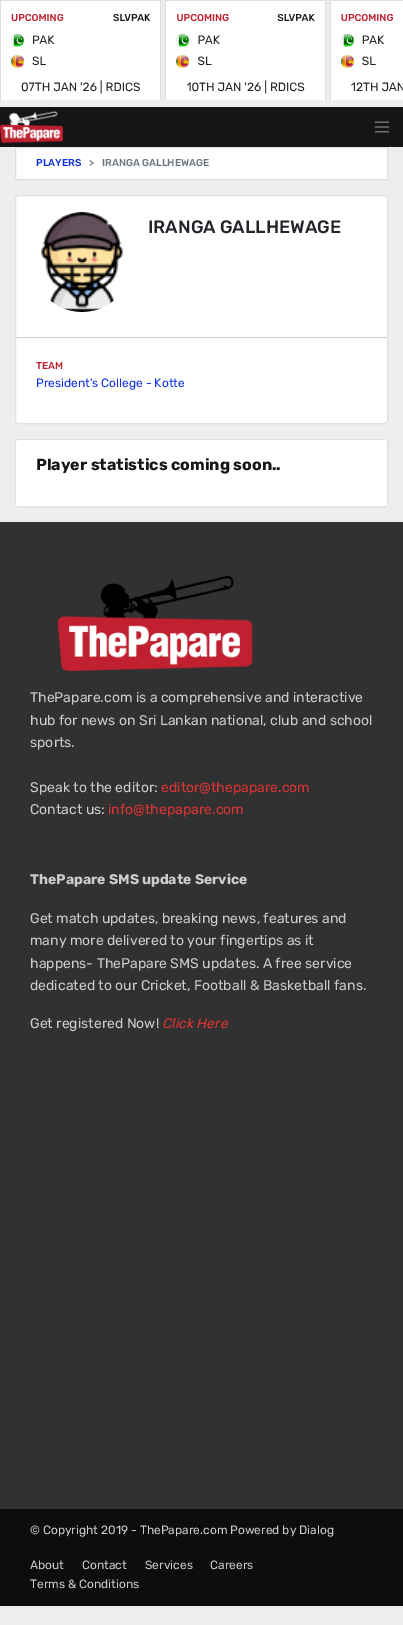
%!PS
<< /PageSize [403 1625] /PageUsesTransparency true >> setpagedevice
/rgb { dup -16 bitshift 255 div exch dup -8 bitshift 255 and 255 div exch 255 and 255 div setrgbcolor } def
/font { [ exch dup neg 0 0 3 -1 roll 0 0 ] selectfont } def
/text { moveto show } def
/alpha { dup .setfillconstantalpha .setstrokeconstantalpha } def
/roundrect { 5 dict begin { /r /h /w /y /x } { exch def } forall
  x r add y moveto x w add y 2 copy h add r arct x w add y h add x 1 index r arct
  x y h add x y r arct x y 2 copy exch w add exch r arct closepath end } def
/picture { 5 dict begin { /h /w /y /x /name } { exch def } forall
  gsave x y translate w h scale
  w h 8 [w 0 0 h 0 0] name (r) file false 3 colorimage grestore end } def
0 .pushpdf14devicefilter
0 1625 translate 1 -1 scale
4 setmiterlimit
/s1 { /Rubik-Medium 10 font 16#0E30DF rgb } def
/s2 { /Rubik-Medium 10 font 16#6C757D rgb } def
/s3 { /Rubik-Medium 18 font 16#212529 rgb } def
/s4 { /Rubik-Medium 10 font 16#BF202E rgb } def
/s5 { /Rubik-Regular 12 font 16#0E30DF rgb } def
/s6 { /Rubik-Bold 16 font 16#151517 rgb } def
/s7 { /Rubik-Regular 14 font 16#CCCCCC rgb } def
/s8 { /Rubik-Regular 14 font 16#DD3333 rgb } def
/s9 { /Rubik-Bold 14 font 16#CCCCCC rgb } def
/s10 { /Rubik-Italic 14 font 16#DD3333 rgb } def
/s11 { /Rubik-Regular 12 font 16#CCCCCC rgb } def
16#EDEEF0 rgb
0 0 403 1625 rectfill
(pic1.raw) 0 0 403 100 picture
16#151517 rgb
0 107 403 40 rectfill
(pic2.raw) 0 111 63 33 picture
(pic3.raw) 374 121 16 12 picture
16#FFFFFF rgb
15.5 147.5 moveto 387.5 147.5 lineto 387.5 179.5 lineto 15.5 179.5 lineto closepath gsave fill grestore
16#DFDFDF rgb
stroke
s1
(PLAYERS) 36 166 text
s2
(>) 89 166 text
(IRANGA GALLHEWAGE) 102 166 text
16#FFFFFF rgb
15 195 373 229 4 roundrect fill
0.12 alpha
16#000000 rgb
15.5 195.5 372 228 3.5 roundrect stroke
1 alpha
16#D3CECE rgb
16 337 371 1 rectfill
(pic4.raw) 41 212 82 100 picture
s3
(IRANGA GALLHEWAGE) 148 233 text
s4
(TEAM) 36 369 text
s5
(President's College - Kotte) 36 387 text
16#FFFFFF rgb
15 439 373 68 4 roundrect fill
0.12 alpha
16#000000 rgb
15.5 439.5 372 67 3.5 roundrect stroke
1 alpha
16#FFFFFF rgb
19 440 moveto 384 440 lineto 385.5 440 387 441.5 387 443 curveto 387 506 lineto 16 506 lineto 16 443 lineto 16 441.5 17.5 440 19 440 curveto closepath fill
s6
(Player statistics coming soon..) 36 470 text
16#313131 rgb
0 522 403 987 rectfill
(pic5.raw) 57 576 196 95 picture
s7
(ThePapare.com is a comprehensive and interactive) 30 702 text
(hub for news on Sri Lankan national, club and school) 30 725 text
(sports.) 30 747 text
(Speak to the editor:) 30 792 text
s8
(editor@thepapare.com) 161 792 text
s7
(Contact us:) 30 814 text
s8
(info@thepapare.com) 108 814 text
s9
(ThePapare SMS update Service) 30 884 text
s7
(Get match updates, breaking news, features and) 30 923 text
(many more delivered to your fingertips as it) 30 945 text
(happens- ThePapare SMS updates. A free service) 30 968 text
(dedicated to our Cricket, Football & Basketball fans.) 30 990 text
(Get registered Now!) 30 1028 text
s10
(Click Here) 162 1028 text
16#0D0D0D rgb
0 1509 403 97 rectfill
s11
(© Copyright 2019 - ThePapare.com Powered by Dialog) 30 1534 text
(About) 30 1569 text
(Contact) 82 1569 text
(Services) 145 1569 text
(Careers) 210 1569 text
(Terms & Conditions) 30 1588 text
.poppdf14devicefilter showpage
